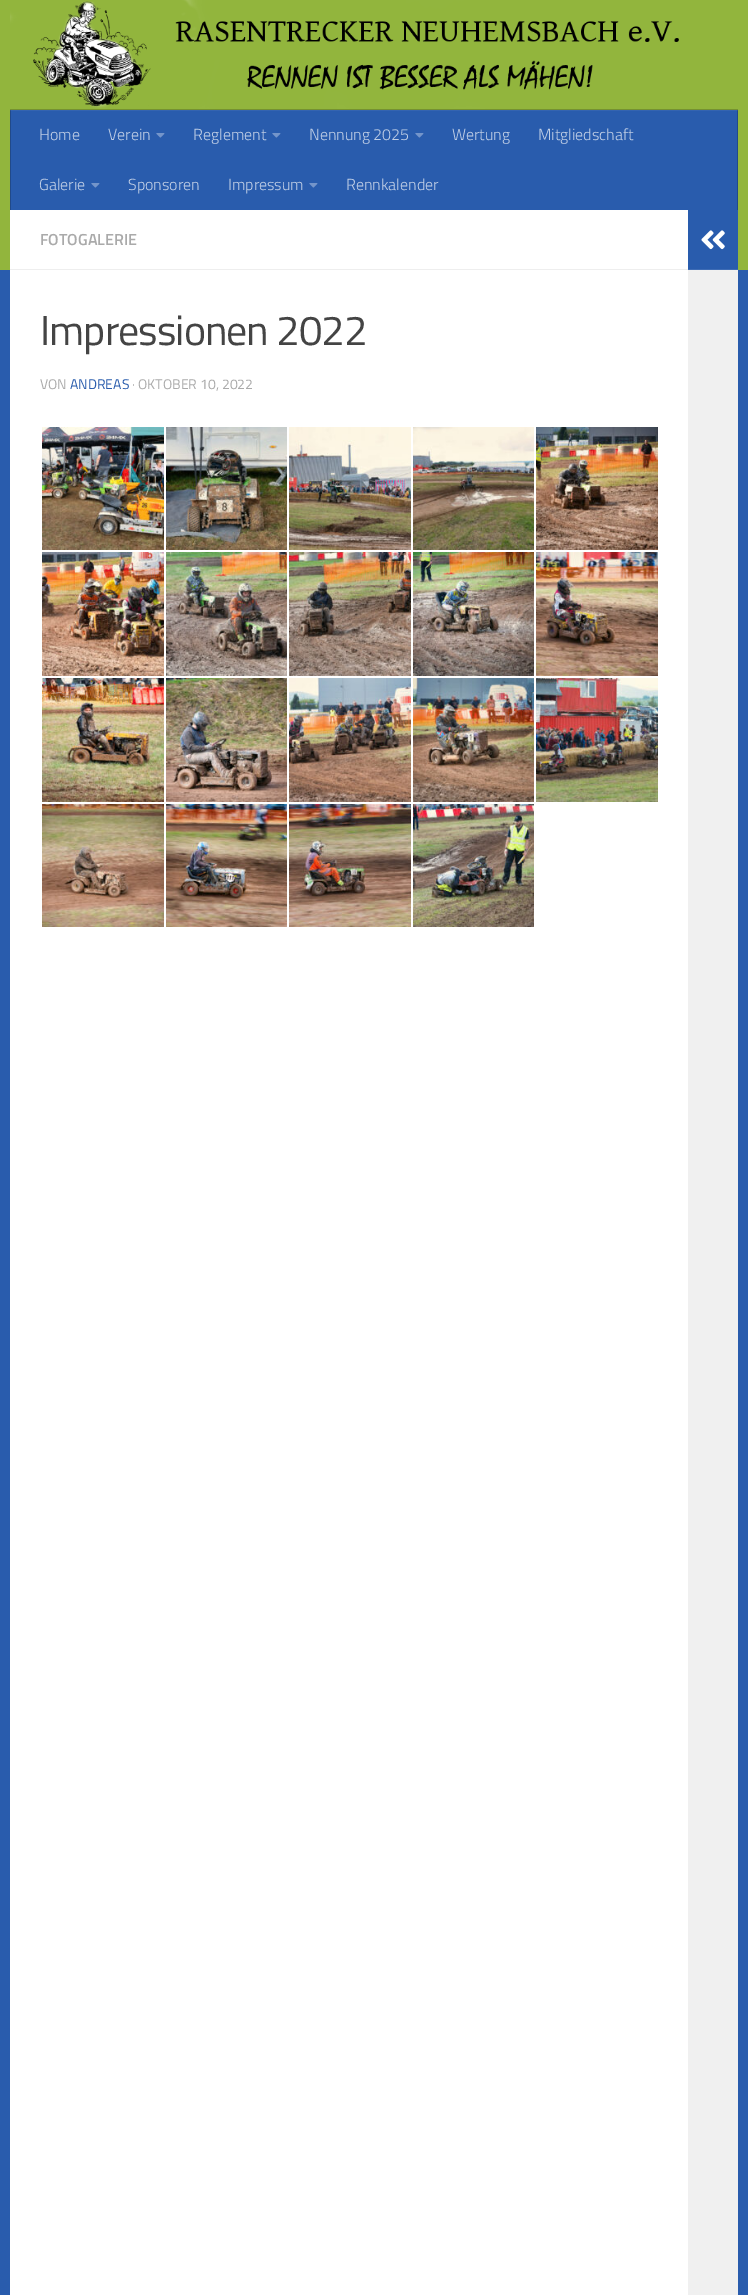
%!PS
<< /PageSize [748 2295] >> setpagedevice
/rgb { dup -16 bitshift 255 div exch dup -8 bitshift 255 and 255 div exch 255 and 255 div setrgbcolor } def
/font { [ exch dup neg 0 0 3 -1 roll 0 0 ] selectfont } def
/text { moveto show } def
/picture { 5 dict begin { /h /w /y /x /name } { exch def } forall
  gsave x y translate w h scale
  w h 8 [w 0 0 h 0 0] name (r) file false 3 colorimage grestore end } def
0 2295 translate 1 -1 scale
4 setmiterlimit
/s1 { /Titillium-Light 16 font 16#BFCEE6 rgb } def
/s2 { /Titillium-SemiBold 16 font 16#AAAAAA rgb } def
/s3 { /Titillium-Regular 14 font 16#AAAAAA rgb } def
/s4 { /Titillium-Regular 14 font 16#295CAD rgb } def
16#295CAD rgb
0 0 748 2295 rectfill
16#92B53D rgb
0 0 748 270 rectfill
(pic1.raw) 10 0 669 109 picture
16#759131 rgb
10 109 728 1 rectfill
16#295CAD rgb
11 111 726 99 rectfill
16#3464B1 rgb
10 110 728 1 rectfill
16#214A8A rgb
737 110 1 100 rectfill
16#2C5390 rgb
737 110 1 1 rectfill
16#214A8A rgb
10 110 1 100 rectfill
16#2C5390 rgb
10 110 1 1 rectfill
s1
(Home) 39 140 text
(Verein) 108 140 text
(pic2.raw) 156 133 9 5 picture
(Reglement) 193 140 text
(pic2.raw) 272 133 9 5 picture
(Nennung 2025) 309 140 text
(pic2.raw) 415 133 9 5 picture
(Wertung) 452 140 text
(Mitgliedschaft) 538 140 text
(Galerie) 39 190 text
(pic2.raw) 91 183 9 5 picture
(Sponsoren) 128 190 text
(Impressum) 228 190 text
(pic2.raw) 309 183 9 5 picture
(Rennkalender) 346 190 text
16#FFFFFF rgb
10 210 678 2085 rectfill
16#EEEEEE rgb
10 269 678 1 rectfill
s2
(FOTOGALERIE) 40 245 text
/Titillium-Regular 42 font
16#444444 rgb
40 345 moveto -1 0 (Impressionen 2022) ashow
s3
(VON) 40 389 text
s4
(ANDREAS) 70 389 text
s3
(· OKTOBER 10, 2022) 132 389 text
(pic3.raw) 42 427 122 123 picture
(pic4.raw) 166 427 121 123 picture
(pic5.raw) 289 427 122 123 picture
(pic6.raw) 413 427 121 123 picture
(pic7.raw) 536 427 122 123 picture
(pic8.raw) 42 552 122 124 picture
(pic9.raw) 166 552 121 124 picture
(pic10.raw) 289 552 122 124 picture
(pic11.raw) 413 552 121 124 picture
(pic12.raw) 536 552 122 124 picture
(pic13.raw) 42 678 122 124 picture
(pic14.raw) 166 678 121 124 picture
(pic15.raw) 289 678 122 124 picture
(pic16.raw) 413 678 121 124 picture
(pic17.raw) 536 678 122 124 picture
(pic18.raw) 42 804 122 123 picture
(pic19.raw) 166 804 121 123 picture
(pic20.raw) 289 804 122 123 picture
(pic21.raw) 413 804 121 123 picture
16#295CAD rgb
688 210 50 59 rectfill
16#3E6CB5 rgb
688 269 50 1 rectfill
(pic22.raw) 701 230 24 20 picture
16#F0F0F0 rgb
688 270 50 2025 rectfill
showpage
